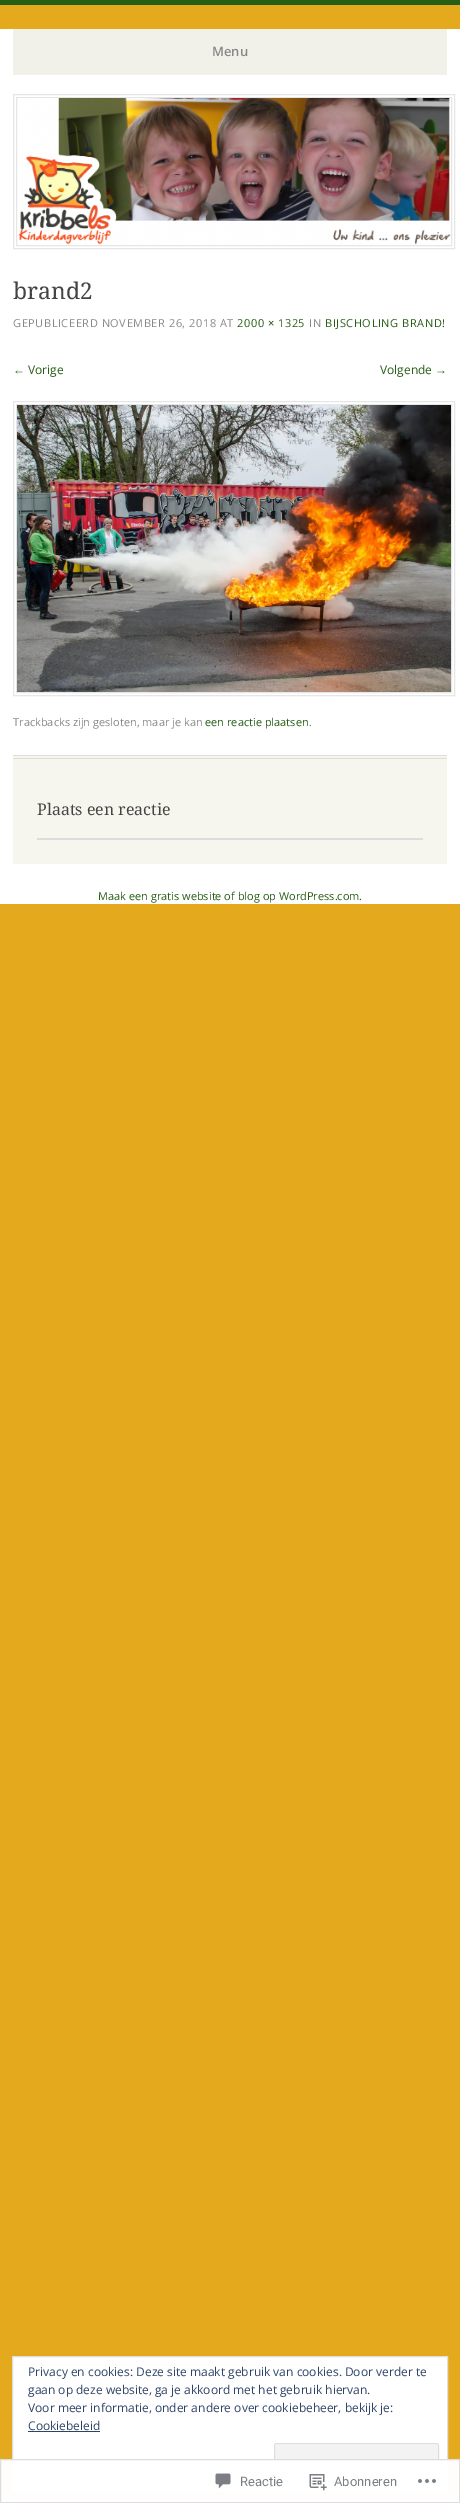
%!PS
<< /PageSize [460 2503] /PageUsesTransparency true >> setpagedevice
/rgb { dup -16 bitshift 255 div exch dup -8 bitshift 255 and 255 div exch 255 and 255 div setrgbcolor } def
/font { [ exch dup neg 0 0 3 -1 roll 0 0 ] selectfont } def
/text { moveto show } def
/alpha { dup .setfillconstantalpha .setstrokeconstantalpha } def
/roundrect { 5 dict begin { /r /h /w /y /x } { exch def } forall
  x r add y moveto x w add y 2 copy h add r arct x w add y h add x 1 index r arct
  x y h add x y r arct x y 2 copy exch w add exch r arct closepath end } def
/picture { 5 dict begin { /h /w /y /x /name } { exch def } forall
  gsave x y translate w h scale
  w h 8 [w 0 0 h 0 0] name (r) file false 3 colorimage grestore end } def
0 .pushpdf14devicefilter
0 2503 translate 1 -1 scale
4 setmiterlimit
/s1 { /OpenSans-SemiBold 13 font 16#888888 rgb } def
/s2 { /DroidSerif-Regular 23 font 16#444444 rgb } def
/s3 { /LiberationSans-Regular 12 font 16#265E15 rgb } def
/s4 { /OpenSans-Regular 12 font 16#265E15 rgb } def
/s5 { /OpenSans-Regular 11 font 16#888888 rgb } def
/s6 { /OpenSans-Regular 11 font 16#265E15 rgb } def
/s7 { /DroidSerif-Regular 16 font 16#444444 rgb } def
/s8 { /OpenSans-Regular 12 font 16#2E4467 rgb } def
/s9 { /Roboto-Regular 13 font 16#7B7F84 rgb } def
16#E5A91D rgb
0 0 460 2503 rectfill
16#265E15 rgb
0 0 460 5 rectfill
16#FFFFFF rgb
0 29 460 875 rectfill
16#F1F1E9 rgb
13 29 434 46 rectfill
s1
(Menu) 212 56 text
16#E6E6E6 rgb
13.5 94.5 441 154 rectstroke
16.5 97.5 435 148 rectstroke
(pic1.raw) 18 98 433 147 picture
s2
(brand2) 13 299 text
/OpenSans-Regular 11 font
16#888888 rgb
13 327 moveto 0.55 0 (GEPUBLICEERD NOVEMBER 26, 2018 AT) ashow
16#265E15 rgb
237 327 moveto 0.55 0 (2000 × 1325) ashow
16#888888 rgb
309 327 moveto 0.55 0 (IN) ashow
16#265E15 rgb
325 327 moveto 0.55 0 (BIJSCHOLING BRAND!) ashow
s3
(←) 13 374 text
s4
(Vorige) 28 374 text
(Volgende) 380 374 text
s3
(→) 435 374 text
16#E6E6E6 rgb
13.5 401.5 441 294 rectstroke
16.5 404.5 435 288 rectstroke
(pic2.raw) 17 405 434 287 picture
s5
(Trackbacks zijn gesloten, maar je kan) 13 726 text
s6
(een reactie plaatsen) 205 726 text
s5
(.) 309 726 text
16#F7F6EE rgb
13 756 434 108 rectfill
16#DEDDD6 rgb
13 755 434 1 rectfill
13 758 434 1 rectfill
s7
(Plaats een reactie) 37 815 text
16#DCDCDE rgb
37 838 386 2 rectfill
s6
(Maak een gratis website of blog op WordPress.com.) 98 900 text
16#FFFFFF rgb
12.5 2356.5 moveto 447.5 2356.5 lineto 447.5 2490.5 lineto 12.5 2490.5 lineto closepath gsave fill grestore
16#DEDEDE rgb
stroke
s8
(Privacy en cookies: Deze site maakt gebruik van cookies. Door verder te) 28 2376 text
(gaan op deze website, ga je akkoord met het gebruik hiervan.) 28 2394 text
(Voor meer informatie, onder andere over cookiebeheer, bekijk je:) 28 2412 text
(Cookiebeleid) 28 2430 text
28 2431 72 1 rectfill
16#F3F3F3 rgb
274 2443 165 39 3 roundrect fill
16#F9F9F9 rgb
277 2445 moveto 436 2445 lineto 437 2445 438 2446 438 2447 curveto 438 2446 438 2444 436 2444 curveto 277 2444 lineto 275 2444 275 2446 275 2447 curveto 275 2446 276 2445 277 2445 curveto closepath fill
16#DEDEDE rgb
274.5 2443.5 164 38 2.5 roundrect stroke
0.98 alpha
16#FFFFFF rgb
0 2459 460 44 rectfill
16#DCDCDE rgb
0.5 2459.5 459 43 rectstroke
1 alpha
(pic3.raw) 215 2473 16 16 picture
s9
(Reactie) 240 2486 text
(pic4.raw) 309 2474 18 17 picture
(Abonneren) 334 2486 text
(pic5.raw) 418 2479 18 4 picture
.poppdf14devicefilter showpage
